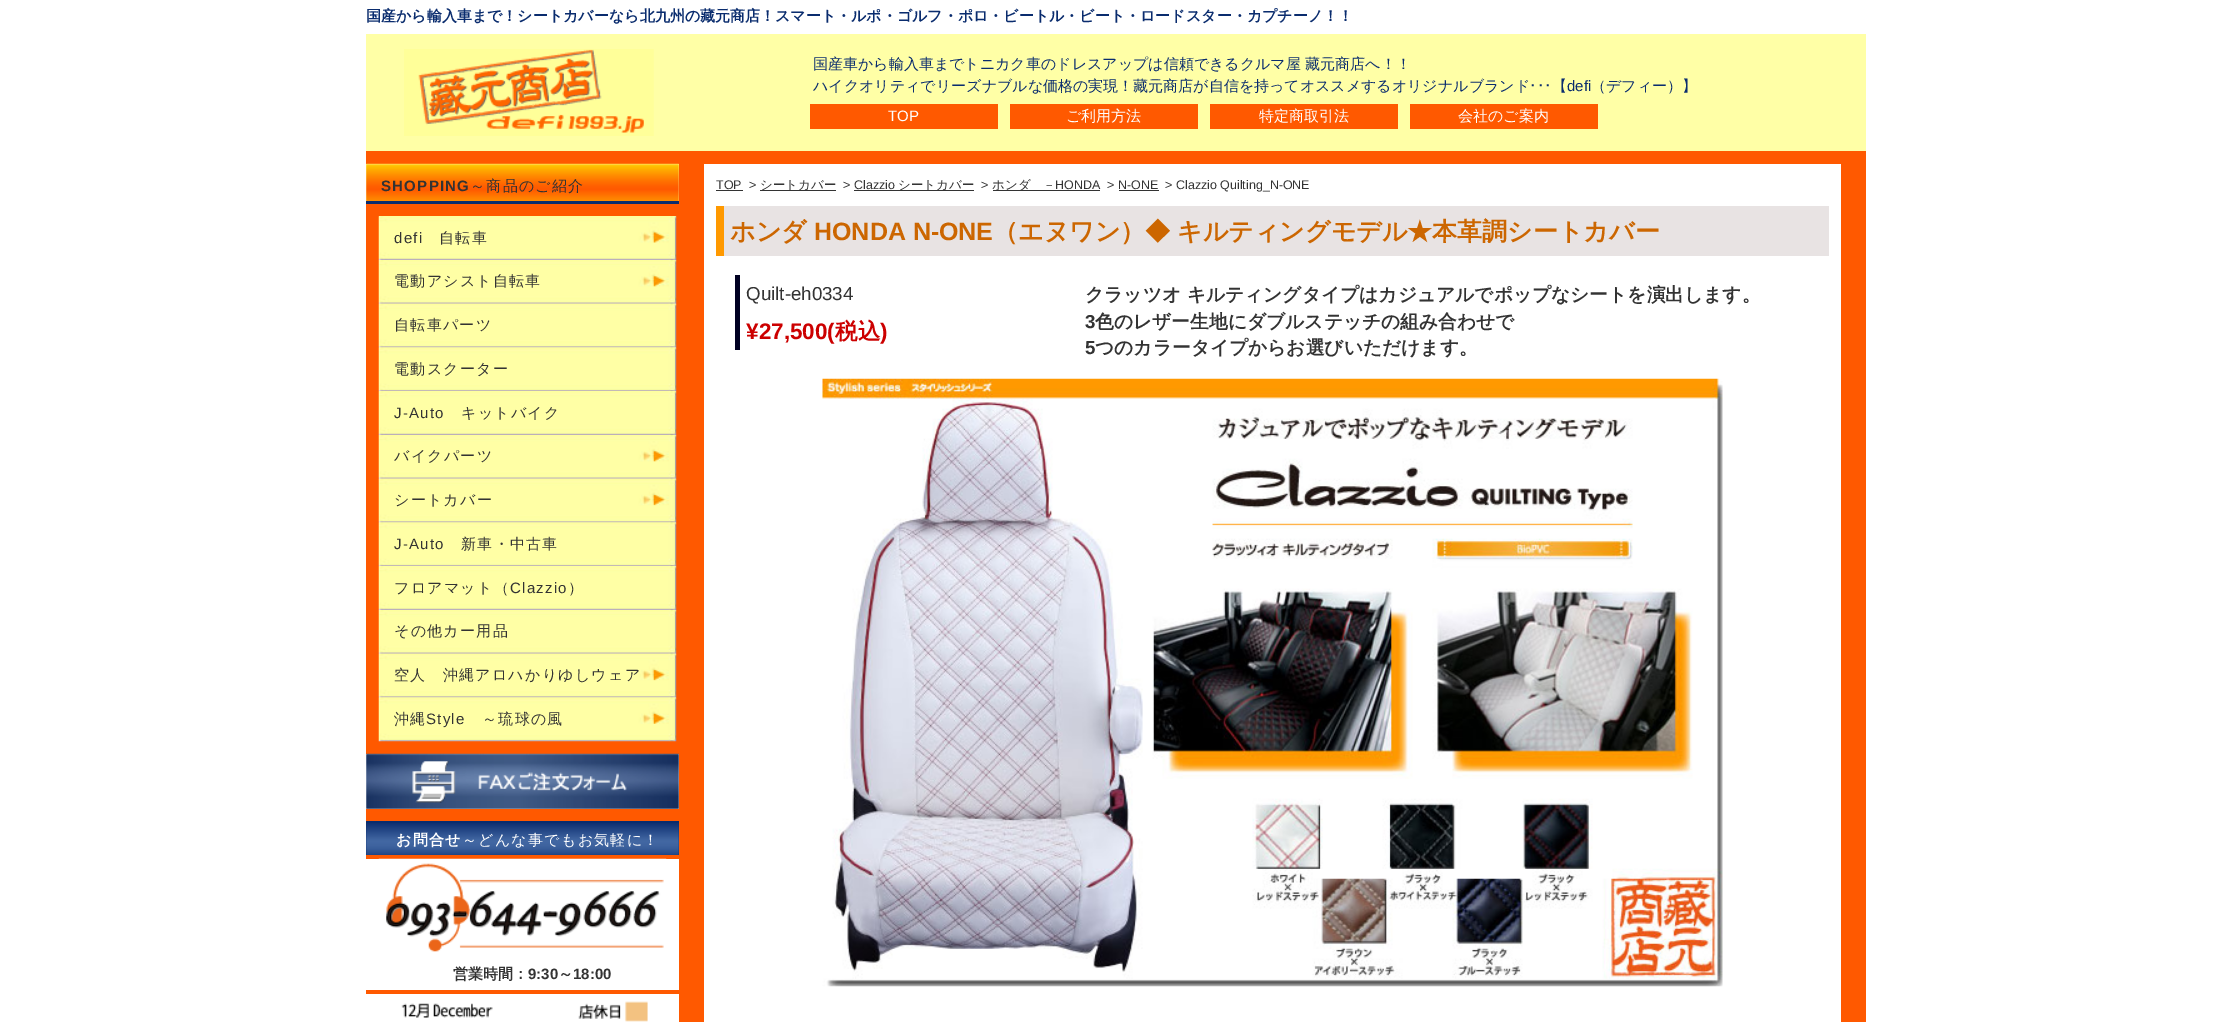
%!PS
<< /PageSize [2232 1022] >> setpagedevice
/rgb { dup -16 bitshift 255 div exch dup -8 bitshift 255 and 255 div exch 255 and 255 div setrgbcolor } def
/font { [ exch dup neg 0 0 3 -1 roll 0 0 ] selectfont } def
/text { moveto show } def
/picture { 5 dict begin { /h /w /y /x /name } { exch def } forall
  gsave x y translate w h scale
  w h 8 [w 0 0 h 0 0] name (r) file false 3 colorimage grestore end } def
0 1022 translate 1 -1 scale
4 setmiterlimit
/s1 { /WenQuanYiZenHei-Bold 15 font 16#0A2C6E rgb } def
/s2 { /WenQuanYiZenHei-Medium 15 font 16#0A2C6E rgb } def
/s3 { /IPAPGothic-Regular 15 font 16#0A2C6E rgb } def
/s4 { /LiberationSans-Regular 15 font 16#0A2C6E rgb } def
/s5 { /LiberationSans-Regular 15 font 16#FFFFFF rgb } def
/s6 { /WenQuanYiZenHei-Medium 15 font 16#FFFFFF rgb } def
/s7 { /WenQuanYiZenHei-Bold 15 font 16#333333 rgb } def
/s8 { /LiberationSans-Bold 15 font 16#333333 rgb } def
/s9 { /LiberationSans-Regular 12.5 font 16#333333 rgb } def
/s10 { /WenQuanYiZenHei-Medium 12.5 font 16#333333 rgb } def
/s11 { /WenQuanYiZenHei-Bold 25 font 16#CC6600 rgb } def
/s12 { /LiberationSans-Bold 25 font 16#CC6600 rgb } def
/s13 { /LiberationSans-Regular 18.75 font 16#333333 rgb } def
/s14 { /LiberationSans-Bold 22.5 font 16#CC0000 rgb } def
/s15 { /WenQuanYiZenHei-Bold 22.5 font 16#CC0000 rgb } def
/s16 { /WenQuanYiZenHei-Bold 18.75 font 16#333333 rgb } def
/s17 { /LiberationSans-Bold 18.75 font 16#333333 rgb } def
16#FFFFFF rgb
0 0 2232 1022 rectfill
s1
(国産から輸入車まで！シートカバーなら北九州の藏元商店！スマート・ルポ・ゴルフ・ポロ・ビートル・ビート・ロードスター・カプチーノ！！) 366 21 text
16#FFFFA6 rgb
366 34 1500 117 rectfill
(pic1.raw) 404 49 250 87 picture
s2
(国産車から輸入車までトニカク車のドレスアップは信頼できるクルマ屋 藏元商店へ！！) 813 69 text
(ハイクオリティでリーズナブルな価格の実現！藏元商店が自信を持ってオススメするオリジナルブランド) 813 91 text
s3
(･･･) 1529 91 text
s2
(【) 1552 91 text
s4
(defi) 1567 91 text
s2
(（デフィー）】) 1591 91 text
16#FF5900 rgb
810 104 188 25 rectfill
s5
(TOP) 888 121 text
16#FF5900 rgb
1010 104 188 25 rectfill
s6
(ご利用方法) 1066 121 text
16#FF5900 rgb
1210 104 188 25 rectfill
s6
(特定商取引法) 1259 121 text
16#FF5900 rgb
1410 104 188 25 rectfill
s6
(会社のご案内) 1458 121 text
16#FF5900 rgb
366 151 313 708 rectfill
(pic2.raw) 366 163 313 38 picture
16#0A2C6E rgb
366 201 313 3 rectfill
/LiberationSans-Bold 15 font
16#333333 rgb
381 191 moveto 1.25 0 (SHOPPING) ashow
/WenQuanYiZenHei-Medium 15 font
470 191 moveto 1.25 0 (～商品のご紹介) ashow
(pic3.raw) 378 216 299 44 picture
/LiberationSans-Regular 15 font
394 243 moveto 1.25 0 (defi) ashow
/WenQuanYiZenHei-Medium 15 font
439 243 moveto 1.25 0 (自転車) ashow
(pic4.raw) 378 260 299 44 picture
394 286 moveto 1.25 0 (電動アシスト自転車) ashow
(pic5.raw) 378 303 299 45 picture
394 330 moveto 1.25 0 (自転車パーツ) ashow
(pic6.raw) 378 347 299 45 picture
394 374 moveto 1.25 0 (電動スクーター) ashow
(pic7.raw) 378 391 299 44 picture
/LiberationSans-Regular 15 font
394 418 moveto 1.25 0 (J-Auto) ashow
/WenQuanYiZenHei-Medium 15 font
461 418 moveto 1.25 0 (キットバイク) ashow
(pic4.raw) 378 435 299 44 picture
394 461 moveto 1.25 0 (バイクパーツ) ashow
(pic8.raw) 378 478 299 45 picture
394 505 moveto 1.25 0 (シートカバー) ashow
(pic6.raw) 378 522 299 45 picture
/LiberationSans-Regular 15 font
394 549 moveto 1.25 0 (J-Auto) ashow
/WenQuanYiZenHei-Medium 15 font
461 549 moveto 1.25 0 (新車・中古車) ashow
(pic9.raw) 378 566 299 44 picture
394 593 moveto 1.25 0 (フロアマット（) ashow
/LiberationSans-Regular 15 font
510 593 moveto 1.25 0 (Clazzio) ashow
/WenQuanYiZenHei-Medium 15 font
568 593 moveto 1.25 0 (）) ashow
(pic10.raw) 378 610 299 44 picture
394 636 moveto 1.25 0 (その他カー用品) ashow
(pic8.raw) 378 653 299 45 picture
394 680 moveto 1.25 0 (空人　沖縄アロハかりゆしウェア) ashow
(pic11.raw) 378 697 299 45 picture
394 724 moveto 1.25 0 (沖縄) ashow
/LiberationSans-Regular 15 font
426 724 moveto 1.25 0 (Style) ashow
/WenQuanYiZenHei-Medium 15 font
482 724 moveto 1.25 0 (～琉球の風) ashow
16#FFFFFF rgb
366 754 313 55 rectfill
(pic12.raw) 366 753 313 56 picture
16#0A2C6E rgb
366 821 313 34 rectfill
(pic13.raw) 366 823 313 32 picture
/WenQuanYiZenHei-Bold 15 font
16#FFFFFF rgb
396 845 moveto 1.25 0 (お問合せ) ashow
/WenQuanYiZenHei-Medium 15 font
462 845 moveto 1.25 0 (～どんな事でもお気軽に！) ashow
(pic14.raw) 378 858 289 94 picture
16#FF5900 rgb
366 990 313 4 rectfill
s7
(営業時間：) 453 979 text
s8
(9:30) 528 979 text
s7
(～) 558 979 text
s8
(18:00) 573 979 text
(pic15.raw) 401 1001 247 21 picture
16#FF5900 rgb
704 151 1137 13 rectfill
1841 151 25 871 rectfill
679 151 25 871 rectfill
s9
(TOP) 716 189 text
716 190 27 1 rectfill
(>) 749 189 text
760 190 76 1 rectfill
s10
(シートカバー) 760 189 text
s9
(> Clazzio) 843 189 text
854 190 120 1 rectfill
s10
(シートカバー) 898 189 text
s9
(>) 981 189 text
993 190 107 1 rectfill
s10
(ホンダ　－) 992 189 text
s9
(HONDA) 1055 189 text
(> N-ONE) 1107 189 text
(> Clazzio Quilting_N-ONE) 1165 189 text
1119 190 40 1 rectfill
16#E8E3E3 rgb
724 206 1105 50 rectfill
16#FF9900 rgb
716 206 8 50 rectfill
s11
(ホンダ) 730 240 text
s12
(HONDA N-ONE) 814 240 text
s11
(（エヌワン）◆) 993 240 text
(キルティングモデル★本革調シートカバー) 1177 240 text
16#000022 rgb
735 275 5 75 rectfill
s13
(Quilt-eh0334) 746 300 text
s14
(¥27,500\() 746 339 text
s15
(税込) 835 339 text
s14
(\)) 880 339 text
s16
(クラッツオ キルティングタイプはカジュアルでポップなシートを演出します。) 1085 301 text
s17
(3) 1085 328 text
s16
(色のレザー生地にダブルステッチの組み合わせで) 1095 328 text
s17
(5) 1085 354 text
s16
(つのカラータイプからお選びいただけます。) 1095 354 text
(pic16.raw) 822 378 901 609 picture
showpage
